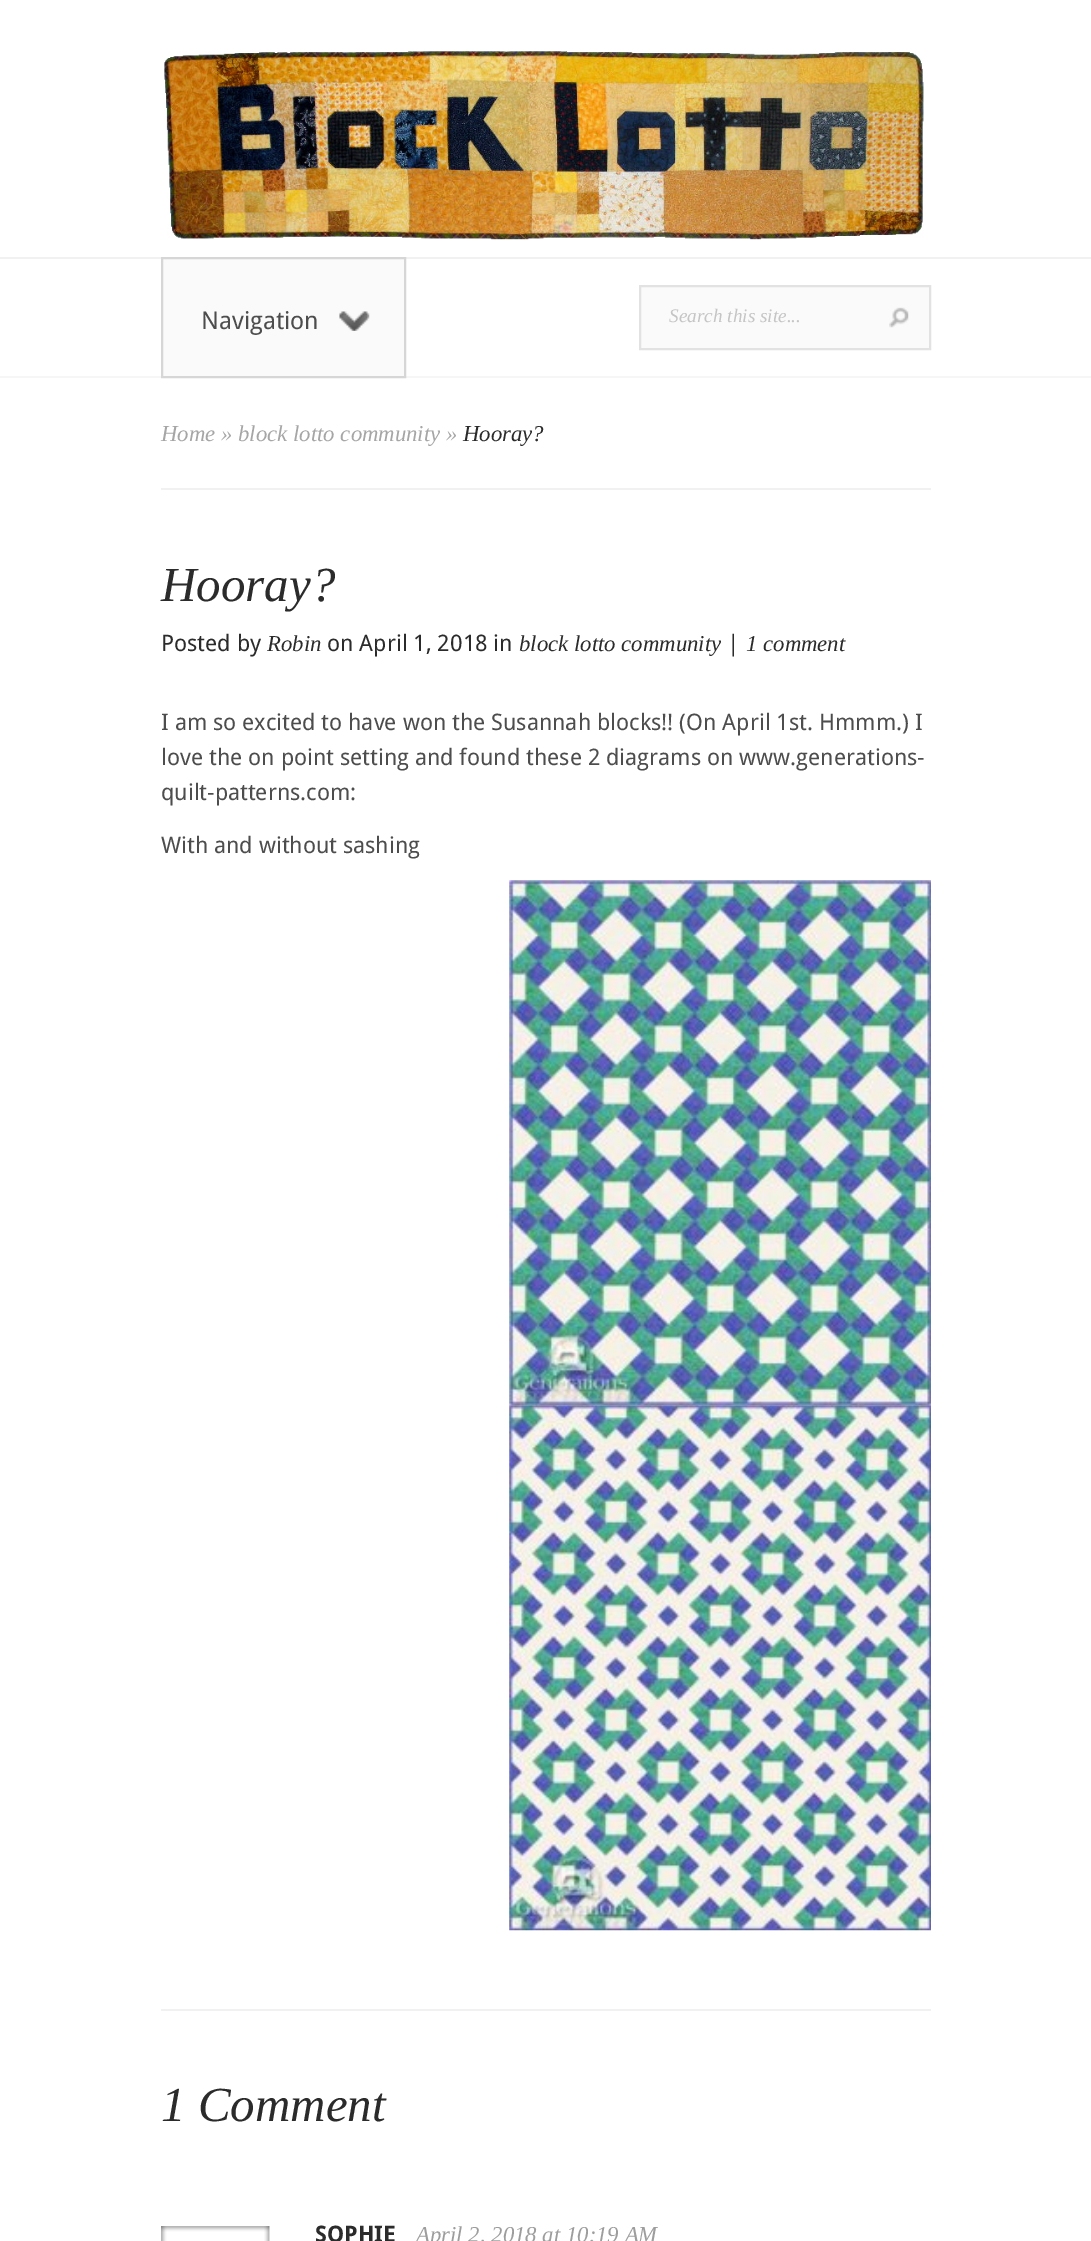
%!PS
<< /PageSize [1091 2241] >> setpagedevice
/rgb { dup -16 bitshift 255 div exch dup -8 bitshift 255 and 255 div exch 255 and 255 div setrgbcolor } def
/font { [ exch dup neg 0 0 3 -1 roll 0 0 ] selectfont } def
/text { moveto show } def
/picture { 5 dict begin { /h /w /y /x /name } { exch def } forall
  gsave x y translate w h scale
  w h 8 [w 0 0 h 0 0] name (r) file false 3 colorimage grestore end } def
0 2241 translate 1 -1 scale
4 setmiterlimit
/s1 { /DroidSans-Regular 24.5 font 16#4D4D4D rgb } def
/s2 { /LiberationSerif-Italic 19.25 font 16#C5C5C5 rgb } def
/s3 { /LiberationSerif-Italic 22.75 font 16#A6A6A6 rgb } def
/s4 { /LiberationSerif-Italic 22.75 font 16#2B2B2B rgb } def
/s5 { /LiberationSerif-Italic 49 font 16#2B2B2B rgb } def
/s6 { /DroidSans-Regular 22.75 font 16#2B2B2B rgb } def
/s7 { /DroidSans-Regular 22.75 font 16#4D4D4D rgb } def
/s8 { /DroidSans-Bold 22.75 font 16#2B2B2B rgb } def
/s9 { /LiberationSerif-Italic 22.75 font 16#9D9D9D rgb } def
16#FFFFFF rgb
0 0 1091 2241 rectfill
(pic1.raw) 164 51 760 189 picture
16#F1F1F1 rgb
0 257 1091 2 rectfill
16#F6F6F6 rgb
0 376 1091 2 rectfill
16#FAFAFA rgb
162 258 moveto 405 258 lineto 405 377 lineto 162 377 lineto closepath gsave fill grestore
16#D6D6D6 rgb
2 setlinewidth
stroke
s1
(Navigation) 201 329 text
(pic2.raw) 339 311 31 20 picture
16#FAFAFA rgb
640 286 moveto 930 286 lineto 930 349 lineto 640 349 lineto closepath gsave fill grestore
16#E2E2E2 rgb
stroke
s2
(Search this site...) 669 322 text
(pic3.raw) 889 307 20 21 picture
16#F1F1F1 rgb
161 488 770 2 rectfill
s3
(Home » block lotto community ») 161 441 text
s4
(Hooray?) 463 441 text
16#F1F1F1 rgb
161 2009 770 2 rectfill
s5
(Hooray?) 161 601 text
s6
(Posted by) 161 651 text
s4
(Robin) 267 651 text
s6
(on April 1, 2018 in) 327 651 text
s4
(block lotto community) 519 651 text
s6
(|) 727 651 text
s4
(1 comment) 746 651 text
s7
(I am so excited to have won the Susannah blocks!! \(On April 1st. Hmmm.\) I) 161 730 text
(love the on point setting and found these 2 diagrams on www.generations-) 161 765 text
(quilt-patterns.com:) 161 800 text
(With and without sashing) 161 853 text
(pic4.raw) 509 880 422 526 picture
(pic5.raw) 509 1405 422 526 picture
s5
(1 Comment) 161 2121 text
(pic6.raw) 161 2226 109 15 picture
s8
(SOPHIE) 315 2242 text
s9
(April 2, 2018 at 10:19 AM) 416 2242 text
showpage
